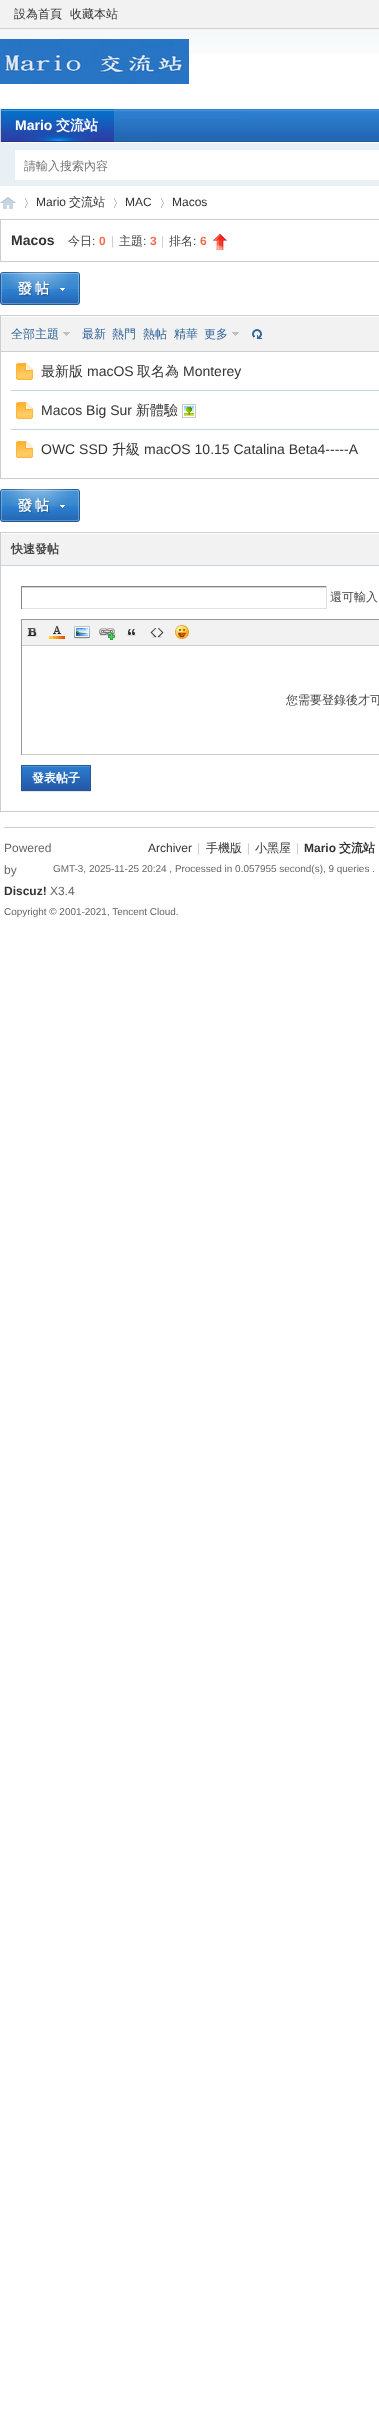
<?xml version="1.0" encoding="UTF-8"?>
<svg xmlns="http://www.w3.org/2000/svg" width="379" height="2435">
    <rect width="100%" height="100%" fill="#FFFFFF"/>
    <image x="0" y="29" width="379" height="25" href="img_01.png"/>
    <rect x="0" y="0" width="379" height="28" fill="#F2F2F2"/>
    <rect x="0" y="28" width="379" height="1" fill="#CDCDCD"/>
    <text x="14" y="18" font-family="WenQuanYi Zen Hei" font-size="12" font-weight="500" fill="#333333">設為首頁</text>
    <text x="70" y="18" font-family="WenQuanYi Zen Hei" font-size="12" font-weight="500" fill="#333333">收藏本站</text>
    <image x="0" y="39" width="189" height="45" href="img_02.png"/>
    <image x="114" y="109" width="265" height="33" href="img_03.png"/>
    <rect x="0" y="109" width="1" height="33" fill="#CDCDCD"/>
    <image x="1" y="109" width="113" height="33" href="img_04.png"/>
    <text x="15" y="130" font-family="Liberation Sans" font-size="14" font-weight="700" fill="#FFFFFF">Mario</text>
    <text x="56" y="130" font-family="WenQuanYi Zen Hei" font-size="14" font-weight="700" fill="#FFFFFF">交流站</text>
    <rect x="0" y="143" width="379" height="43" fill="#E8EFF5"/>
    <rect x="15" y="150" width="364" height="30" fill="#FFFFFF"/>
    <text x="24" y="170" font-family="WenQuanYi Zen Hei" font-size="12" font-weight="500" fill="#757575">請輸入搜索內容</text>
    <image x="0" y="197" width="16" height="12" href="img_05.png"/>
    <image x="25" y="198" width="3" height="10" href="img_06.png"/>
    <text x="36" y="206" font-family="Liberation Sans" font-size="12" fill="#333333">Mario</text>
    <text x="69" y="206" font-family="WenQuanYi Zen Hei" font-size="12" font-weight="500" fill="#333333">交流站</text>
    <image x="114" y="198" width="3" height="10" href="img_06.png"/>
    <text x="125" y="206" font-family="Liberation Sans" font-size="12" fill="#333333">MAC</text>
    <image x="161" y="198" width="3" height="10" href="img_06.png"/>
    <text x="172" y="206" font-family="Liberation Sans" font-size="12" fill="#333333">Macos</text>
    <rect x="0.5" y="219.5" width="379" height="42" fill="none" stroke="#CDCDCD"/>
    <text x="11" y="245" font-family="Liberation Sans" font-size="14" font-weight="700" fill="#333333">Macos</text>
    <text x="68" y="245" font-family="WenQuanYi Zen Hei" font-size="12" font-weight="500" fill="#444444">今日</text>
    <text x="92" y="245" font-family="Liberation Sans" font-size="12" fill="#444444">:</text>
    <text x="99" y="245" font-family="Liberation Sans" font-size="12" font-weight="700" fill="#F26C4F">0</text>
    <text x="111" y="245" font-family="Liberation Sans" font-size="12" fill="#CCCCCC">|</text>
    <text x="119" y="245" font-family="WenQuanYi Zen Hei" font-size="12" font-weight="500" fill="#444444">主題</text>
    <text x="143" y="245" font-family="Liberation Sans" font-size="12" fill="#444444">:</text>
    <text x="150" y="245" font-family="Liberation Sans" font-size="12" font-weight="700" fill="#F26C4F">3</text>
    <text x="161" y="245" font-family="Liberation Sans" font-size="12" fill="#CCCCCC">|</text>
    <text x="169" y="245" font-family="WenQuanYi Zen Hei" font-size="12" font-weight="500" fill="#444444">排名</text>
    <text x="193" y="245" font-family="Liberation Sans" font-size="12" fill="#444444">:</text>
    <text x="200" y="245" font-family="Liberation Sans" font-size="12" font-weight="700" fill="#F26C4F">6</text>
    <image x="213" y="234" width="14" height="16" href="img_07.png"/>
    <image x="0" y="272" width="80" height="33" href="img_08.png"/>
    <rect x="0.5" y="315.5" width="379" height="163" fill="none" stroke="#CDCDCD"/>
    <rect x="1" y="317" width="378" height="34" fill="#F2F2F2"/>
    <rect x="1" y="351" width="378" height="1" fill="#CDCDCD"/>
    <text x="11" y="338" font-family="WenQuanYi Zen Hei" font-size="12" font-weight="500" fill="#336699">全部主題</text>
    <image x="63" y="332" width="7" height="4" href="img_09.png"/>
    <text x="82" y="338" font-family="WenQuanYi Zen Hei" font-size="12" font-weight="500" fill="#336699">最新</text>
    <text x="112" y="338" font-family="WenQuanYi Zen Hei" font-size="12" font-weight="500" fill="#336699">熱門</text>
    <text x="143" y="338" font-family="WenQuanYi Zen Hei" font-size="12" font-weight="500" fill="#336699">熱帖</text>
    <text x="174" y="338" font-family="WenQuanYi Zen Hei" font-size="12" font-weight="500" fill="#336699">精華</text>
    <text x="204" y="338" font-family="WenQuanYi Zen Hei" font-size="12" font-weight="500" fill="#336699">更多</text>
    <image x="232" y="332" width="7" height="4" href="img_09.png"/>
    <image x="252" y="329" width="10" height="10" href="img_10.png"/>
    <rect x="11" y="390" width="368" height="1" fill="#C2D5E3"/>
    <image x="16" y="363" width="17" height="17" href="img_11.png"/>
    <text x="41" y="376" font-family="WenQuanYi Zen Hei" font-size="14" font-weight="500" fill="#333333">最新版</text>
    <text x="87" y="376" font-family="Liberation Sans" font-size="14" fill="#333333">macOS</text>
    <text x="137" y="376" font-family="WenQuanYi Zen Hei" font-size="14" font-weight="500" fill="#333333">取名為</text>
    <text x="183" y="376" font-family="Liberation Sans" font-size="14" fill="#333333">Monterey</text>
    <rect x="11" y="429" width="368" height="1" fill="#C2D5E3"/>
    <image x="16" y="402" width="17" height="17" href="img_11.png"/>
    <text x="41" y="415" font-family="Liberation Sans" font-size="14" fill="#333333">Macos Big Sur</text>
    <text x="136" y="415" font-family="WenQuanYi Zen Hei" font-size="14" font-weight="500" fill="#333333">新體驗</text>
    <image x="182" y="404" width="14" height="14" href="img_12.png"/>
    <image x="16" y="441" width="17" height="17" href="img_11.png"/>
    <text x="41" y="454" font-family="Liberation Sans" font-size="14" fill="#333333">OWC SSD</text>
    <text x="112" y="454" font-family="WenQuanYi Zen Hei" font-size="14" font-weight="500" fill="#333333">升級</text>
    <text x="144" y="454" font-family="Liberation Sans" font-size="14" fill="#333333">macOS 10.15 Catalina Beta4-----A</text>
    <image x="0" y="489" width="80" height="33" href="img_08.png"/>
    <rect x="0.5" y="532.5" width="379" height="279" fill="none" stroke="#CDCDCD"/>
    <rect x="1" y="534" width="378" height="31" fill="#F2F2F2"/>
    <rect x="1" y="565" width="378" height="1" fill="#C2D5E3"/>
    <text x="11" y="553" font-family="WenQuanYi Zen Hei" font-size="12" font-weight="700" fill="#444444">快速發帖</text>
    <rect x="21" y="587" width="306" height="1" fill="#D4D4D4"/>
    <rect x="21" y="586" width="306" height="1" fill="#848484"/>
    <rect x="326" y="586" width="1" height="23" fill="#E0E0E0"/>
    <rect x="21" y="608" width="306" height="1" fill="#E0E0E0"/>
    <rect x="21" y="586" width="1" height="23" fill="#848484"/>
    <text x="330" y="601" font-family="WenQuanYi Zen Hei" font-size="12" font-weight="500" fill="#444444">還可輸入</text>
    <rect x="21" y="619" width="358" height="1" fill="#999999"/>
    <rect x="21" y="754" width="358" height="1" fill="#CCCCCC"/>
    <rect x="21" y="619" width="1" height="136" fill="#999999"/>
    <rect x="22" y="620" width="357" height="25" fill="#F2F2F2"/>
    <rect x="22" y="645" width="357" height="1" fill="#CDCDCD"/>
    <image x="27" y="628" width="11" height="9" href="img_13.png"/>
    <image x="49" y="626" width="16" height="13" href="img_14.png"/>
    <image x="74" y="626" width="16" height="13" href="img_15.png"/>
    <image x="99" y="628" width="17" height="12" href="img_16.png"/>
    <image x="127" y="629" width="9" height="7" href="img_17.png"/>
    <image x="150" y="628" width="14" height="10" href="img_18.png"/>
    <image x="174" y="625" width="15" height="14" href="img_19.png"/>
    <text x="286" y="704" font-family="WenQuanYi Zen Hei" font-size="12" font-weight="500" fill="#444444">您需要登錄後才可</text>
    <rect x="21" y="791" width="70" height="1" fill="#E5E5E5"/>
    <image x="22" y="766" width="68" height="24" href="img_20.png"/>
    <rect x="21.5" y="765.5" width="69" height="25" fill="none" stroke="#235994"/>
    <text x="32" y="782" font-family="WenQuanYi Zen Hei" font-size="12" font-weight="700" fill="#FFFFFF">發表帖子</text>
    <rect x="4" y="827" width="371" height="1" fill="#CDCDCD"/>
    <text x="148" y="852" font-family="Liberation Sans" font-size="12" fill="#333333">Archiver</text>
    <text x="197" y="852" font-family="Liberation Sans" font-size="12" fill="#CCCCCC">|</text>
    <text x="206" y="852" font-family="WenQuanYi Zen Hei" font-size="12" font-weight="500" fill="#333333">手機版</text>
    <text x="247" y="852" font-family="Liberation Sans" font-size="12" fill="#CCCCCC">|</text>
    <text x="255" y="852" font-family="WenQuanYi Zen Hei" font-size="12" font-weight="500" fill="#333333">小黑屋</text>
    <text x="296" y="852" font-family="Liberation Sans" font-size="12" fill="#CCCCCC">|</text>
    <text x="304" y="852" font-family="Liberation Sans" font-size="12" font-weight="700" fill="#333333">Mario</text>
    <text x="339" y="852" font-family="WenQuanYi Zen Hei" font-size="12" font-weight="700" fill="#333333">交流站</text>
    <text x="53" y="872" font-family="Liberation Sans" font-size="9.95" fill="#666666">GMT-3, 2025-11-25 20:24 , Processed in 0.057955 second(s), 9 queries .</text>
    <text font-family="Liberation Sans" font-size="12" fill="#666666">
        <tspan x="4" y="852">Powered</tspan>
        <tspan x="4" y="874">by</tspan>
    </text>
    <text x="4" y="895" font-family="Liberation Sans" font-size="12" font-weight="700" fill="#333333">Discuz!</text>
    <text x="50" y="895" font-family="Liberation Sans" font-size="12" fill="#666666">X3.4</text>
    <text x="4" y="915" font-family="Liberation Sans" font-size="9.95" fill="#666666">Copyright © 2001-2021, Tencent Cloud.</text>
</svg>
